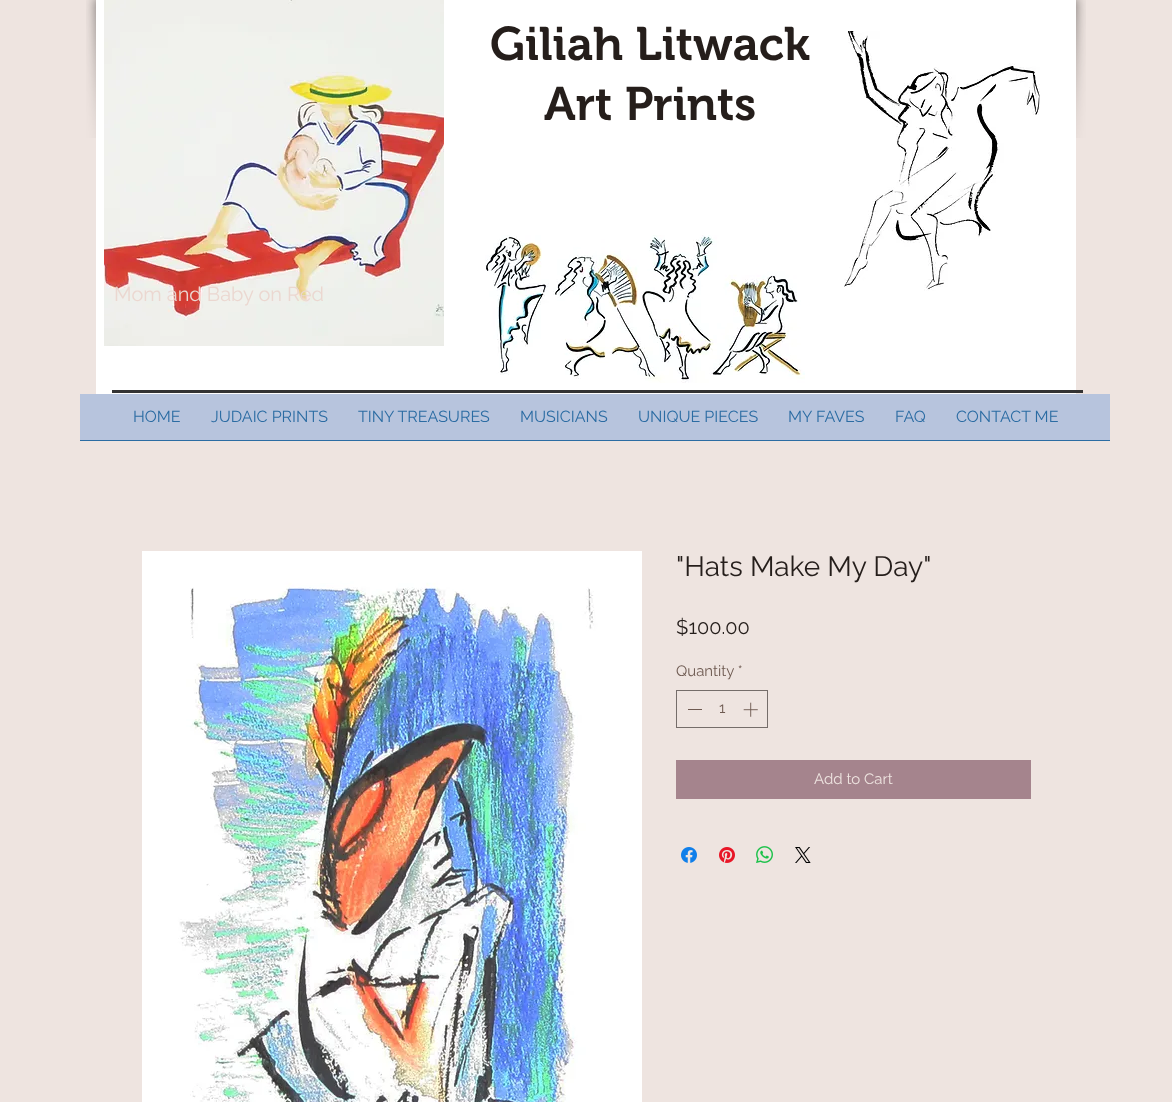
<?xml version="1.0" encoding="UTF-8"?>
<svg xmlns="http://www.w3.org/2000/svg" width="1172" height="1102">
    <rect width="100%" height="100%" fill="#EEE4E0"/>
    <image x="86" y="0" width="10" height="138" href="img_01.png"/>
    <rect x="96" y="0" width="980" height="394" fill="#FFFFFF"/>
    <image x="1076" y="0" width="10" height="138" href="img_02.png"/>
    <text x="490" y="60" font-family="'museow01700'" font-size="47" font-weight="600" fill="#251E1B">Giliah Litwack</text>
    <text x="544" y="120" font-family="'museow01700'" font-size="47" font-weight="600" fill="#251E1B">Art Prints</text>
    <image x="844" y="31" width="196" height="260" href="img_03.png"/>
    <image x="104" y="0" width="340" height="346" href="img_04.png"/>
    <text x="114" y="301" font-family="Raleway" font-size="20" fill="#EBD7D0">Mom and Baby on Red</text>
    <image x="485" y="235" width="320" height="148" href="img_05.png"/>
    <rect x="112" y="390" width="971" height="3" fill="#333333"/>
    <rect x="80" y="394" width="1030" height="46" fill="#B7C4DD"/>
    <rect x="80" y="440" width="1030" height="1" fill="#2B6CA3"/>
    <text x="133" y="422" font-family="Raleway" font-size="16" fill="#2B6CA3">HOME</text>
    <text x="211" y="422" font-family="Raleway" font-size="16" fill="#2B6CA3">JUDAIC PRINTS</text>
    <text x="358" y="422" font-family="Raleway" font-size="16" fill="#2B6CA3">TINY TREASURES</text>
    <text x="520" y="422" font-family="Raleway" font-size="16" fill="#2B6CA3">MUSICIANS</text>
    <text x="638" y="422" font-family="Raleway" font-size="16" fill="#2B6CA3">UNIQUE PIECES</text>
    <text x="788" y="422" font-family="Raleway" font-size="16" fill="#2B6CA3">MY FAVES</text>
    <text x="895" y="422" font-family="Raleway" font-size="16" fill="#2B6CA3">FAQ</text>
    <text x="956" y="422" font-family="Raleway" font-size="16" fill="#2B6CA3">CONTACT ME</text>
    <image x="142" y="551" width="500" height="551" href="img_06.png"/>
    <text x="676" y="576" font-family="Raleway" font-size="28" fill="#251E1B">"Hats Make My Day"</text>
    <text x="676" y="634" font-family="Raleway" font-size="20" fill="#251E1B">$100.00</text>
    <text x="676" y="676" font-family="Raleway" font-size="15" fill="#6E5A51">Quantity *</text>
    <rect x="676.5" y="690.5" width="91" height="37" fill="none" stroke="#756D6A"/>
    <rect x="688" y="709" width="14" height="1" fill="#6E5A51"/>
    <text x="719" y="713" font-family="Raleway" font-size="15" fill="#6E5A51">1</text>
    <image x="743" y="702" width="15" height="15" href="img_07.png"/>
    <rect x="676" y="760" width="355" height="39" fill="#A5848D"/>
    <text x="814" y="784" font-family="Raleway" font-size="15" fill="#EEE4E0">Add to Cart</text>
    <image x="681" y="847" width="16" height="16" href="img_08.png"/>
    <image x="719" y="847" width="16" height="16" href="img_09.png"/>
    <image x="756" y="846" width="17" height="17" href="img_10.png"/>
    <image x="795" y="847" width="16" height="16" href="img_11.png"/>
</svg>
